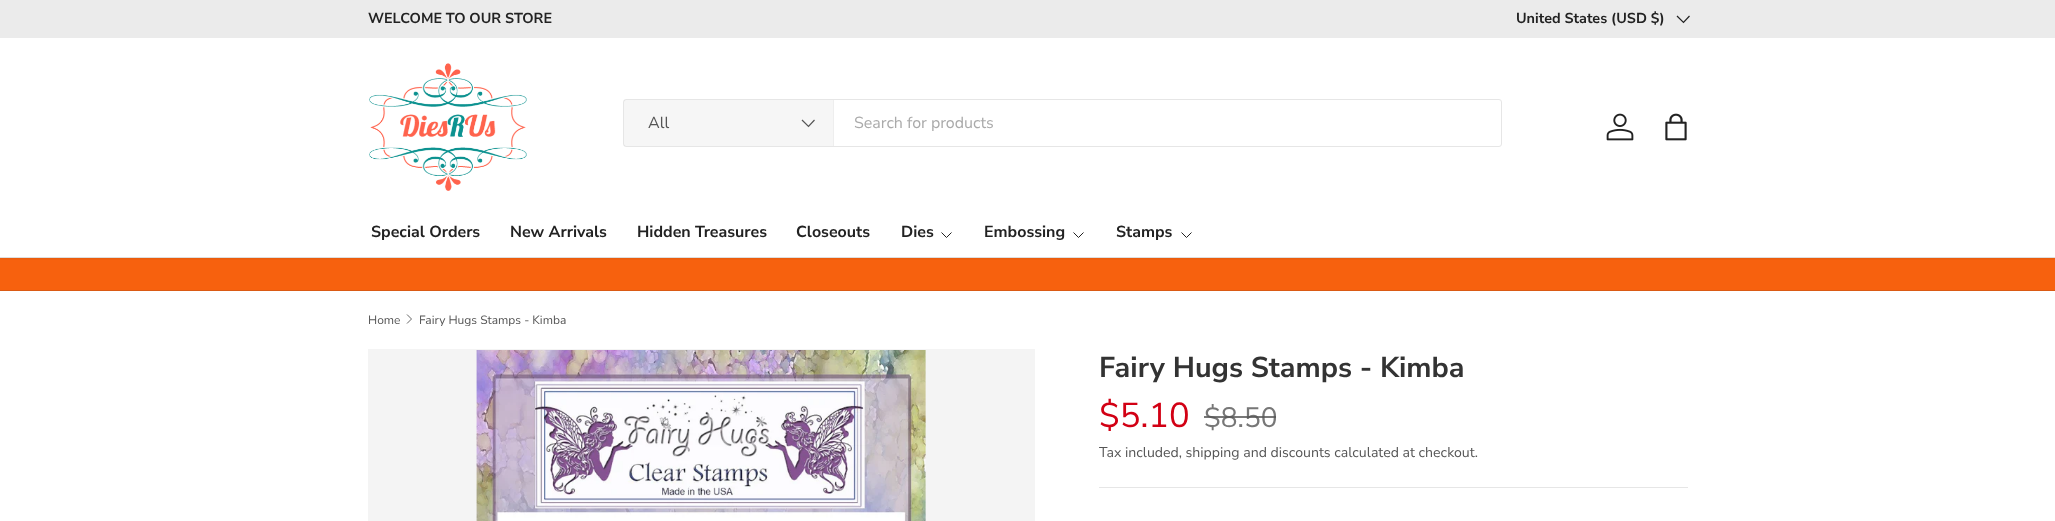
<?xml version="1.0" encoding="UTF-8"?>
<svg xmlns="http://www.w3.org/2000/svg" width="2055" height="521">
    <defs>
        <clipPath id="clip1"><rect x="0" y="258" width="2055" height="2"/></clipPath>
        <filter id="blur1" x="-50%" y="-200%" width="200%" height="500%"><feGaussianBlur stdDeviation="1.5"/></filter>
        <clipPath id="clip2"><rect x="419" y="314" width="147" height="12"/></clipPath>
    </defs>
    <rect width="100%" height="100%" fill="#FFFFFF"/>
    <rect x="0" y="258" width="2055" height="32" fill="#F7610E"/>
    <g clip-path="url(#clip1)">
        <rect x="-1" y="37" width="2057" height="222" fill="#000000" fill-opacity="0.08" filter="url(#blur1)"/>
    </g>
    <rect x="0" y="0" width="2055" height="38" fill="#EBEBEB"/>
    <text x="368" y="23" font-family="Nunito Sans" font-size="14.4" font-weight="700" fill="#222222">WELCOME TO OUR STORE</text>
    <text x="1516" y="23" font-family="Nunito Sans" font-size="14.4" font-weight="700" fill="#222222">United States (USD $)</text>
    <path d="M 1689.5 16 L 1683.5 22.5 L 1677 16" fill="none" stroke="#222222" stroke-width="1.2"/>
    <image x="369" y="63" width="158" height="128" href="img_01.png"/>
    <rect x="623.5" y="99.5" width="878" height="47" rx="2.5" fill="none" stroke="#E6E6E6"/>
    <rect x="624" y="100" width="209" height="46" fill="#555555" fill-opacity="0.05"/>
    <rect x="833" y="100" width="1" height="46" fill="#EEEEEE"/>
    <text x="648" y="128" font-family="Nunito Sans" font-size="16" fill="#555555">All</text>
    <path d="M 814.5 120 L 808.5 126.5 L 802 120" fill="none" stroke="#555555" stroke-width="1.2"/>
    <text x="854" y="128" font-family="Nunito Sans" font-size="16" fill="#AAAAAA">Search for products</text>
    <image x="1606" y="113" width="28" height="28" href="img_02.png"/>
    <image x="1665" y="113" width="22" height="28" href="img_03.png"/>
    <text x="371" y="237" font-family="Nunito Sans" font-size="16" font-weight="700" fill="#222222">Special Orders</text>
    <text x="510" y="237" font-family="Nunito Sans" font-size="16" font-weight="700" fill="#222222">New Arrivals</text>
    <text x="637" y="237" font-family="Nunito Sans" font-size="16" font-weight="700" fill="#222222">Hidden Treasures</text>
    <text x="796" y="237" font-family="Nunito Sans" font-size="16" font-weight="700" fill="#222222">Closeouts</text>
    <text x="901" y="237" font-family="Nunito Sans" font-size="16" font-weight="700" fill="#222222">Dies</text>
    <path d="M 951.5 232.5 L 946.5 237.5 L 941.5 232.5" fill="none" stroke="#222222"/>
    <text x="984" y="237" font-family="Nunito Sans" font-size="16" font-weight="700" fill="#222222">Embossing</text>
    <path d="M 1083.5 232.5 L 1078.5 237.5 L 1073.5 232.5" fill="none" stroke="#222222"/>
    <text x="1116" y="237" font-family="Nunito Sans" font-size="16" font-weight="700" fill="#222222">Stamps</text>
    <path d="M 1191.5 232.5 L 1186.5 237.5 L 1181.5 232.5" fill="none" stroke="#222222"/>
    <rect x="0" y="257" width="2055" height="1" fill="#DEDEDE"/>
    <rect x="0" y="290" width="2055" height="1" fill="#DA5A14"/>
    <text x="368" y="324" font-family="Nunito Sans" font-size="12" fill="#555555">Home</text>
    <path d="M 407 314.5 L 411.5 319 L 407 323.5" fill="none" stroke="#555555" stroke-width="0.9"/>
    <g clip-path="url(#clip2)">
        <text x="419" y="324" font-family="Nunito Sans" font-size="12" fill="#555555">Fairy Hugs Stamps - Kimba</text>
    </g>
    <rect x="368" y="349" width="667" height="172" fill="#F4F4F4"/>
    <image x="476" y="350" width="450" height="171" href="img_04.png"/>
    <text x="1099" y="377" font-family="Nunito Sans" font-size="28.75" font-weight="700" fill="#333333">Fairy Hugs Stamps - Kimba</text>
    <text x="1099" y="427" font-family="Nunito Sans" font-size="34.5" fill="#D20014">$5.10</text>
    <text x="1204" y="427" font-family="Nunito Sans" font-size="28" fill="#777777">$8.50</text>
    <rect x="1204" y="416" width="72" height="2" fill="#555555" fill-opacity="0.8"/>
    <text x="1099" y="457" font-family="Nunito Sans" font-size="14.1" fill="#555555">Tax included, shipping and discounts calculated at checkout.</text>
    <rect x="1099" y="487" width="589" height="1" fill="#E6E6E6"/>
</svg>
